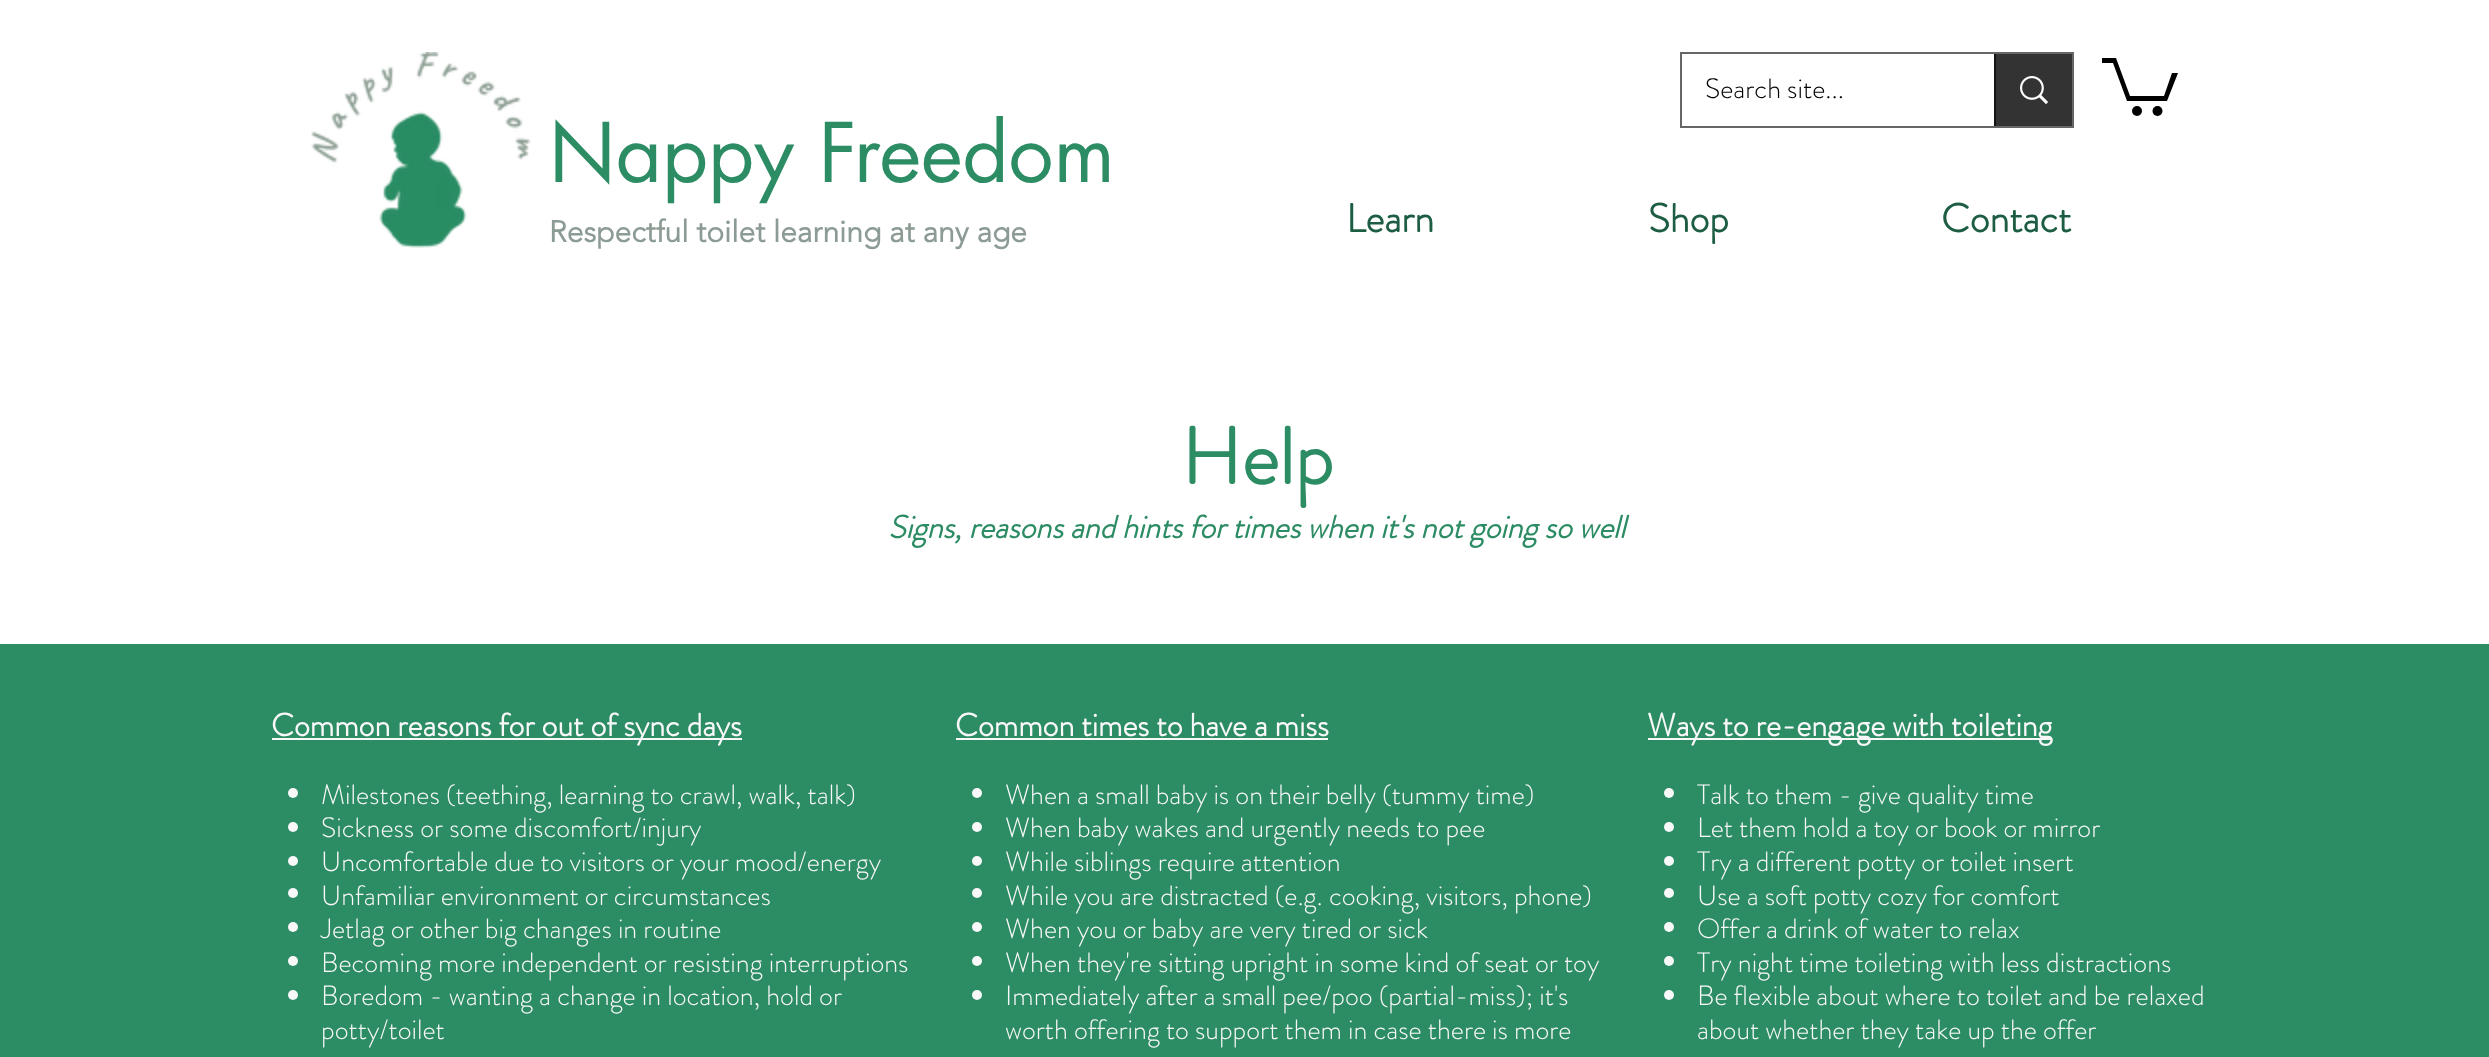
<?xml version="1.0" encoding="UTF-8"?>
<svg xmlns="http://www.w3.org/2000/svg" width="2489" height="1057">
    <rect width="100%" height="100%" fill="#FFFFFF"/>
    <image x="311" y="52" width="220" height="196" href="img_01.png"/>
    <rect x="1681" y="53" width="392" height="74" fill="none" stroke="#666666" stroke-width="2"/>
    <text x="1705" y="98" font-family="'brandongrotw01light'" font-size="28" font-weight="300" fill="#000000">Search site...</text>
    <rect x="1996" y="54" width="76" height="72" fill="#333333"/>
    <rect x="1994" y="54" width="2" height="72" fill="#141414"/>
    <image x="2020" y="76" width="28" height="28" href="img_02.png"/>
    <path d="M 2178 73 L 2167 101 H 2127 L 2113 63 H 2102 V 58 H 2116 L 2130 96 H 2164 L 2172 73" fill="#000000"/>
    <circle cx="2157.5" cy="111" r="5" fill="#000000"/>
    <circle cx="2137" cy="111" r="5" fill="#000000"/>
    <text x="549" y="182" font-family="futura" font-size="80" fill="#2C8C64">Nappy Freedom</text>
    <text x="549" y="242" font-family="'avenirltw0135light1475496'" font-size="30" font-weight="700" fill="#8C9C94">Respectful toilet learning at any age</text>
    <text x="1346" y="232" font-family="'brandongrotw01light'" font-size="40" font-weight="700" fill="#1D5D43">Learn</text>
    <text x="1648" y="232" font-family="'brandongrotw01light'" font-size="40" font-weight="700" fill="#1D5D43">Shop</text>
    <text x="1941" y="232" font-family="'brandongrotw01light'" font-size="40" font-weight="700" fill="#1D5D43">Contact</text>
    <text x="1181" y="484" font-family="'brandongrotw01light'" font-size="80" font-weight="700" fill="#2C8C64">Help</text>
    <text x="888" y="538" font-family="'brandongrotw01light'" font-size="32" font-weight="700" font-style="italic" fill="#2C8C64">Signs, reasons and hints for times when it's not going so well</text>
    <rect x="0" y="644" width="2489" height="413" fill="#2C8C64"/>
    <rect x="272" y="738" width="470" height="2" fill="#F8F8F8"/>
    <text x="271" y="736" font-family="'brandongrotw01light'" font-size="32" font-weight="700" fill="#F8F8F8">Common reasons for out of sync days</text>
    <circle cx="293" cy="793" r="5" fill="#F8F8F8"/>
    <text x="321" y="804" font-family="'brandongrotw01light'" font-size="28" font-weight="300" fill="#F8F8F8">Milestones (teething, learning to crawl, walk, talk)</text>
    <circle cx="293" cy="827" r="5" fill="#F8F8F8"/>
    <text x="321" y="837" font-family="'brandongrotw01light'" font-size="28" font-weight="300" fill="#F8F8F8">Sickness or some discomfort/injury</text>
    <circle cx="293" cy="861" r="5" fill="#F8F8F8"/>
    <text x="321" y="871" font-family="'brandongrotw01light'" font-size="28" font-weight="300" fill="#F8F8F8">Uncomfortable due to visitors or your mood/energy</text>
    <circle cx="293" cy="893" r="5" fill="#F8F8F8"/>
    <text x="321" y="905" font-family="'brandongrotw01light'" font-size="28" font-weight="300" fill="#F8F8F8">Unfamiliar environment or circumstances</text>
    <circle cx="293" cy="927" r="5" fill="#F8F8F8"/>
    <text x="321" y="938" font-family="'brandongrotw01light'" font-size="28" font-weight="300" fill="#F8F8F8">Jetlag or other big changes in routine</text>
    <circle cx="293" cy="961" r="5" fill="#F8F8F8"/>
    <text x="321" y="972" font-family="'brandongrotw01light'" font-size="28" font-weight="300" fill="#F8F8F8">Becoming more independent or resisting interruptions</text>
    <circle cx="293" cy="995" r="5" fill="#F8F8F8"/>
    <text font-family="'brandongrotw01light'" font-size="28" font-weight="300" fill="#F8F8F8">
        <tspan x="321" y="1005">Boredom - wanting a change in location, hold or</tspan>
        <tspan x="321" y="1039">potty/toilet</tspan>
    </text>
    <text x="955" y="736" font-family="'brandongrotw01light'" font-size="32" font-weight="700" fill="#F8F8F8">Common times to have a miss</text>
    <rect x="956" y="738" width="372" height="2" fill="#F8F8F8"/>
    <circle cx="977" cy="793" r="5" fill="#F8F8F8"/>
    <text x="1005" y="804" font-family="'brandongrotw01light'" font-size="28" font-weight="300" fill="#F8F8F8">When a small baby is on their belly (tummy time)</text>
    <circle cx="977" cy="827" r="5" fill="#F8F8F8"/>
    <text x="1005" y="837" font-family="'brandongrotw01light'" font-size="28" font-weight="300" fill="#F8F8F8">When baby wakes and urgently needs to pee</text>
    <circle cx="977" cy="861" r="5" fill="#F8F8F8"/>
    <text x="1005" y="871" font-family="'brandongrotw01light'" font-size="28" font-weight="300" fill="#F8F8F8">While siblings require attention</text>
    <circle cx="977" cy="893" r="5" fill="#F8F8F8"/>
    <text x="1005" y="905" font-family="'brandongrotw01light'" font-size="28" font-weight="300" fill="#F8F8F8">While you are distracted (e.g. cooking, visitors, phone)</text>
    <circle cx="977" cy="927" r="5" fill="#F8F8F8"/>
    <text x="1005" y="938" font-family="'brandongrotw01light'" font-size="28" font-weight="300" fill="#F8F8F8">When you or baby are very tired or sick</text>
    <circle cx="977" cy="961" r="5" fill="#F8F8F8"/>
    <text x="1005" y="972" font-family="'brandongrotw01light'" font-size="28" font-weight="300" fill="#F8F8F8">When they're sitting upright in some kind of seat or toy</text>
    <circle cx="977" cy="995" r="5" fill="#F8F8F8"/>
    <text font-family="'brandongrotw01light'" font-size="28" font-weight="300" fill="#F8F8F8">
        <tspan x="1005" y="1005">Immediately after a small pee/poo (partial-miss); it's</tspan>
        <tspan x="1005" y="1039">worth offering to support them in case there is more</tspan>
    </text>
    <rect x="1648" y="738" width="404" height="2" fill="#F8F8F8"/>
    <text x="1647" y="736" font-family="'brandongrotw01light'" font-size="32" font-weight="700" fill="#F8F8F8">Ways to re-engage with toileting</text>
    <circle cx="1669" cy="793" r="5" fill="#F8F8F8"/>
    <text x="1697" y="804" font-family="'brandongrotw01light'" font-size="28" font-weight="300" fill="#F8F8F8">Talk to them - give quality time</text>
    <circle cx="1669" cy="827" r="5" fill="#F8F8F8"/>
    <text x="1697" y="837" font-family="'brandongrotw01light'" font-size="28" font-weight="300" fill="#F8F8F8">Let them hold a toy or book or mirror</text>
    <circle cx="1669" cy="861" r="5" fill="#F8F8F8"/>
    <text x="1697" y="871" font-family="'brandongrotw01light'" font-size="28" font-weight="300" fill="#F8F8F8">Try a different potty or toilet insert</text>
    <circle cx="1669" cy="893" r="5" fill="#F8F8F8"/>
    <text x="1697" y="905" font-family="'brandongrotw01light'" font-size="28" font-weight="300" fill="#F8F8F8">Use a soft potty cozy for comfort</text>
    <circle cx="1669" cy="927" r="5" fill="#F8F8F8"/>
    <text x="1697" y="938" font-family="'brandongrotw01light'" font-size="28" font-weight="300" fill="#F8F8F8">Offer a drink of water to relax</text>
    <circle cx="1669" cy="961" r="5" fill="#F8F8F8"/>
    <text x="1697" y="972" font-family="'brandongrotw01light'" font-size="28" font-weight="300" fill="#F8F8F8">Try night time toileting with less distractions</text>
    <circle cx="1669" cy="995" r="5" fill="#F8F8F8"/>
    <text font-family="'brandongrotw01light'" font-size="28" font-weight="300" fill="#F8F8F8">
        <tspan x="1697" y="1005">Be flexible about where to toilet and be relaxed</tspan>
        <tspan x="1697" y="1039">about whether they take up the offer</tspan>
    </text>
</svg>
